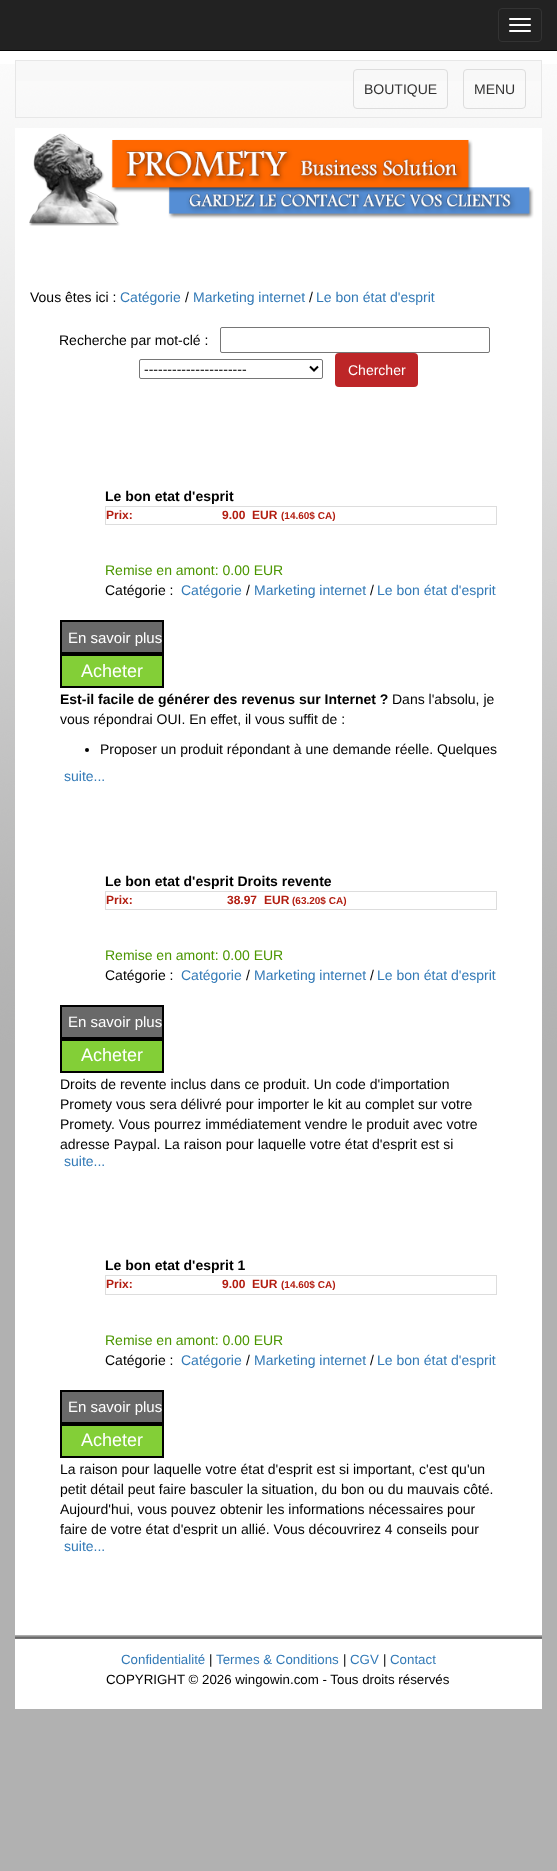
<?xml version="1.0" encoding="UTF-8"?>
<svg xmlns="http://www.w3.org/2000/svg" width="557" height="1871">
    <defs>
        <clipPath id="clip1"><rect x="60" y="1074" width="437" height="77"/></clipPath>
        <clipPath id="clip2"><rect x="60" y="1459" width="437" height="77"/></clipPath>
    </defs>
    <rect width="100%" height="100%" fill="#FFFFFF"/>
    <image x="0" y="64" width="557" height="1807" href="img_01.png"/>
    <rect x="0" y="0" width="557" height="50" fill="#222222"/>
    <rect x="0" y="50" width="557" height="1" fill="#080808"/>
    <rect x="498.5" y="8.5" width="43" height="33" rx="3.5" fill="none" stroke="#333333"/>
    <rect x="509" y="18" width="22" height="2" rx="1" fill="#FFFFFF"/>
    <rect x="509" y="24" width="22" height="2" rx="1" fill="#FFFFFF"/>
    <rect x="509" y="30" width="22" height="2" rx="1" fill="#FFFFFF"/>
    <rect x="16" y="61" width="525" height="20" fill="#F8F8F8"/>
    <rect x="15.5" y="60.5" width="526" height="57" fill="none" stroke="#E7E7E7"/>
    <rect x="353.5" y="69.5" width="94" height="39" rx="3.5" fill="none" stroke="#DDDDDD"/>
    <text x="364" y="94" font-family="Liberation Sans" font-size="14" fill="#333333">BOUTIQUE</text>
    <rect x="463.5" y="69.5" width="62" height="39" rx="3.5" fill="none" stroke="#DDDDDD"/>
    <text x="474" y="94" font-family="Liberation Sans" font-size="14" fill="#333333">MENU</text>
    <rect x="15" y="128" width="527" height="1581" fill="#FFFFFF"/>
    <image x="29" y="133" width="505" height="93" href="img_02.png"/>
    <text x="30" y="302" font-family="Liberation Sans" font-size="14" fill="#000000">Vous êtes ici :</text>
    <text x="120" y="302" font-family="Liberation Sans" font-size="14" fill="#337AB7">Catégorie</text>
    <text x="185" y="302" font-family="Liberation Sans" font-size="14" fill="#000000">/</text>
    <text x="193" y="302" font-family="Liberation Sans" font-size="14" fill="#337AB7">Marketing internet</text>
    <text x="309" y="302" font-family="Liberation Sans" font-size="14" fill="#000000">/</text>
    <text x="316" y="302" font-family="Liberation Sans" font-size="14" fill="#337AB7">Le bon état d'esprit</text>
    <text x="59" y="345" font-family="Liberation Sans" font-size="14" fill="#000000">Recherche par mot-clé :</text>
    <rect x="220.5" y="327.5" width="269" height="25" rx="1.5" fill="none" stroke="#767676"/>
    <rect x="139.5" y="359.5" width="183" height="19" rx="1.5" fill="none" stroke="#767676"/>
    <path d="M 310 366.5 L 314 370.5 L 318 366.5" fill="none" stroke="#000000" stroke-width="2"/>
    <text x="144" y="374" font-family="Liberation Sans" font-size="14" fill="#000000">----------------------</text>
    <rect x="335" y="353" width="83" height="34" rx="4" fill="#BD2628"/>
    <text x="348" y="375" font-family="Liberation Sans" font-size="14" fill="#FFFFFF">Chercher</text>
    <text x="105" y="501" font-family="Liberation Sans" font-size="14" font-weight="700" fill="#000000">Le bon etat d'esprit</text>
    <rect x="105" y="506" width="392" height="1" fill="#DDDDDD"/>
    <rect x="496" y="506" width="1" height="19" fill="#DDDDDD"/>
    <rect x="105" y="524" width="392" height="1" fill="#DDDDDD"/>
    <rect x="105" y="506" width="1" height="19" fill="#DDDDDD"/>
    <text x="106" y="519" font-family="Liberation Sans" font-size="12" font-weight="700" fill="#B21D10">Prix:</text>
    <text x="222" y="519" font-family="Liberation Sans" font-size="12" font-weight="700" fill="#B21D10">9.00</text>
    <text x="252" y="519" font-family="Liberation Sans" font-size="12" font-weight="700" fill="#B21D10">EUR</text>
    <text x="281" y="519" font-family="Liberation Sans" font-size="10" font-weight="700" fill="#B21D10">(14.60$ CA)</text>
    <text x="105" y="575" font-family="Liberation Sans" font-size="14" fill="#4B9600">Remise en amont: 0.00 EUR</text>
    <text x="105" y="595" font-family="Liberation Sans" font-size="14" fill="#000000">Catégorie :</text>
    <text x="181" y="595" font-family="Liberation Sans" font-size="14" fill="#337AB7">Catégorie</text>
    <text x="246" y="595" font-family="Liberation Sans" font-size="14" fill="#000000">/</text>
    <text x="254" y="595" font-family="Liberation Sans" font-size="14" fill="#337AB7">Marketing internet</text>
    <text x="370" y="595" font-family="Liberation Sans" font-size="14" fill="#000000">/</text>
    <text x="377" y="595" font-family="Liberation Sans" font-size="14" fill="#337AB7">Le bon état d'esprit</text>
    <rect x="61" y="621" width="102" height="32" fill="#696969" stroke="#000000" stroke-width="2"/>
    <text x="68" y="643" font-family="Liberation Sans" font-size="15" fill="#FFFFFF">En savoir plus</text>
    <rect x="61" y="655" width="102" height="32" fill="#83CF37" stroke="#000000" stroke-width="2"/>
    <text x="81" y="677" font-family="Liberation Sans" font-size="18" fill="#FFFFFF">Acheter</text>
    <text x="60" y="704" font-family="Liberation Sans" font-size="14" font-weight="700" fill="#000000">Est-il facile de générer des revenus sur Internet ?</text>
    <text x="392" y="704" font-family="Liberation Sans" font-size="14" fill="#000000">Dans l'absolu, je</text>
    <text x="60" y="724" font-family="Liberation Sans" font-size="14" fill="#000000">vous répondrai OUI. En effet, il vous suffit de :</text>
    <circle cx="87" cy="750" r="2" fill="#000000"/>
    <text x="100" y="754" font-family="Liberation Sans" font-size="14" fill="#000000">Proposer un produit répondant à une demande réelle. Quelques</text>
    <text x="64" y="781" font-family="Liberation Sans" font-size="14" fill="#337AB7">suite...</text>
    <text x="105" y="886" font-family="Liberation Sans" font-size="14" font-weight="700" fill="#000000">Le bon etat d'esprit Droits revente</text>
    <rect x="105" y="891" width="392" height="1" fill="#DDDDDD"/>
    <rect x="496" y="891" width="1" height="19" fill="#DDDDDD"/>
    <rect x="105" y="909" width="392" height="1" fill="#DDDDDD"/>
    <rect x="105" y="891" width="1" height="19" fill="#DDDDDD"/>
    <text x="106" y="904" font-family="Liberation Sans" font-size="12" font-weight="700" fill="#B21D10">Prix:</text>
    <text x="227" y="904" font-family="Liberation Sans" font-size="12" font-weight="700" fill="#B21D10">38.97</text>
    <text x="264" y="904" font-family="Liberation Sans" font-size="12" font-weight="700" fill="#B21D10">EUR</text>
    <text x="292" y="904" font-family="Liberation Sans" font-size="10" font-weight="700" fill="#B21D10">(63.20$ CA)</text>
    <text x="105" y="960" font-family="Liberation Sans" font-size="14" fill="#4B9600">Remise en amont: 0.00 EUR</text>
    <text x="105" y="980" font-family="Liberation Sans" font-size="14" fill="#000000">Catégorie :</text>
    <text x="181" y="980" font-family="Liberation Sans" font-size="14" fill="#337AB7">Catégorie</text>
    <text x="246" y="980" font-family="Liberation Sans" font-size="14" fill="#000000">/</text>
    <text x="254" y="980" font-family="Liberation Sans" font-size="14" fill="#337AB7">Marketing internet</text>
    <text x="370" y="980" font-family="Liberation Sans" font-size="14" fill="#000000">/</text>
    <text x="377" y="980" font-family="Liberation Sans" font-size="14" fill="#337AB7">Le bon état d'esprit</text>
    <rect x="61" y="1006" width="102" height="32" fill="#696969" stroke="#000000" stroke-width="2"/>
    <text x="68" y="1027" font-family="Liberation Sans" font-size="15" fill="#FFFFFF">En savoir plus</text>
    <rect x="61" y="1040" width="102" height="32" fill="#83CF37" stroke="#000000" stroke-width="2"/>
    <text x="81" y="1061" font-family="Liberation Sans" font-size="18" fill="#FFFFFF">Acheter</text>
    <text font-family="Liberation Sans" font-size="14" fill="#000000">
        <tspan x="60" y="1089">Droits de revente inclus dans ce produit. Un code d'importation</tspan>
        <tspan x="60" y="1109">Promety vous sera délivré pour importer le kit au complet sur votre</tspan>
        <tspan x="60" y="1129">Promety. Vous pourrez immédiatement vendre le produit avec votre</tspan>
    </text>
    <g clip-path="url(#clip1)">
        <text x="60" y="1149" font-family="Liberation Sans" font-size="14" fill="#000000">adresse Paypal. La raison pour laquelle votre état d'esprit est si</text>
    </g>
    <text x="64" y="1166" font-family="Liberation Sans" font-size="14" fill="#337AB7">suite...</text>
    <text x="105" y="1270" font-family="Liberation Sans" font-size="14" font-weight="700" fill="#000000">Le bon etat d'esprit 1</text>
    <rect x="105" y="1275" width="392" height="1" fill="#DDDDDD"/>
    <rect x="496" y="1275" width="1" height="20" fill="#DDDDDD"/>
    <rect x="105" y="1294" width="392" height="1" fill="#DDDDDD"/>
    <rect x="105" y="1275" width="1" height="20" fill="#DDDDDD"/>
    <text x="106" y="1288" font-family="Liberation Sans" font-size="12" font-weight="700" fill="#B21D10">Prix:</text>
    <text x="222" y="1288" font-family="Liberation Sans" font-size="12" font-weight="700" fill="#B21D10">9.00</text>
    <text x="252" y="1288" font-family="Liberation Sans" font-size="12" font-weight="700" fill="#B21D10">EUR</text>
    <text x="281" y="1288" font-family="Liberation Sans" font-size="10" font-weight="700" fill="#B21D10">(14.60$ CA)</text>
    <text x="105" y="1345" font-family="Liberation Sans" font-size="14" fill="#4B9600">Remise en amont: 0.00 EUR</text>
    <text x="105" y="1365" font-family="Liberation Sans" font-size="14" fill="#000000">Catégorie :</text>
    <text x="181" y="1365" font-family="Liberation Sans" font-size="14" fill="#337AB7">Catégorie</text>
    <text x="246" y="1365" font-family="Liberation Sans" font-size="14" fill="#000000">/</text>
    <text x="254" y="1365" font-family="Liberation Sans" font-size="14" fill="#337AB7">Marketing internet</text>
    <text x="370" y="1365" font-family="Liberation Sans" font-size="14" fill="#000000">/</text>
    <text x="377" y="1365" font-family="Liberation Sans" font-size="14" fill="#337AB7">Le bon état d'esprit</text>
    <rect x="61" y="1391" width="102" height="32" fill="#696969" stroke="#000000" stroke-width="2"/>
    <text x="68" y="1412" font-family="Liberation Sans" font-size="15" fill="#FFFFFF">En savoir plus</text>
    <rect x="61" y="1425" width="102" height="32" fill="#83CF37" stroke="#000000" stroke-width="2"/>
    <text x="81" y="1446" font-family="Liberation Sans" font-size="18" fill="#FFFFFF">Acheter</text>
    <text font-family="Liberation Sans" font-size="14" fill="#000000">
        <tspan x="60" y="1474">La raison pour laquelle votre état d'esprit est si important, c'est qu'un</tspan>
        <tspan x="60" y="1494">petit détail peut faire basculer la situation, du bon ou du mauvais côté.</tspan>
        <tspan x="60" y="1514">Aujourd'hui, vous pouvez obtenir les informations nécessaires pour</tspan>
    </text>
    <g clip-path="url(#clip2)">
        <text x="60" y="1534" font-family="Liberation Sans" font-size="14" fill="#000000">faire de votre état d'esprit un allié. Vous découvrirez 4 conseils pour</text>
    </g>
    <text x="64" y="1551" font-family="Liberation Sans" font-size="14" fill="#337AB7">suite...</text>
    <image x="15" y="1635" width="527" height="4" href="img_03.png"/>
    <text x="121" y="1664" font-family="Liberation Sans" font-size="13.3" fill="#337AB7">Confidentialité</text>
    <text x="209" y="1664" font-family="Liberation Sans" font-size="13.3" fill="#000000">|</text>
    <text x="216" y="1664" font-family="Liberation Sans" font-size="13.3" fill="#337AB7">Termes &amp; Conditions</text>
    <text x="343" y="1664" font-family="Liberation Sans" font-size="13.3" fill="#000000">|</text>
    <text x="350" y="1664" font-family="Liberation Sans" font-size="13.3" fill="#337AB7">CGV</text>
    <text x="383" y="1664" font-family="Liberation Sans" font-size="13.3" fill="#000000">|</text>
    <text x="390" y="1664" font-family="Liberation Sans" font-size="13.3" fill="#337AB7">Contact</text>
    <text x="106" y="1684" font-family="Liberation Sans" font-size="13.3" fill="#000000">COPYRIGHT © 2026 wingowin.com - Tous droits réservés</text>
</svg>
